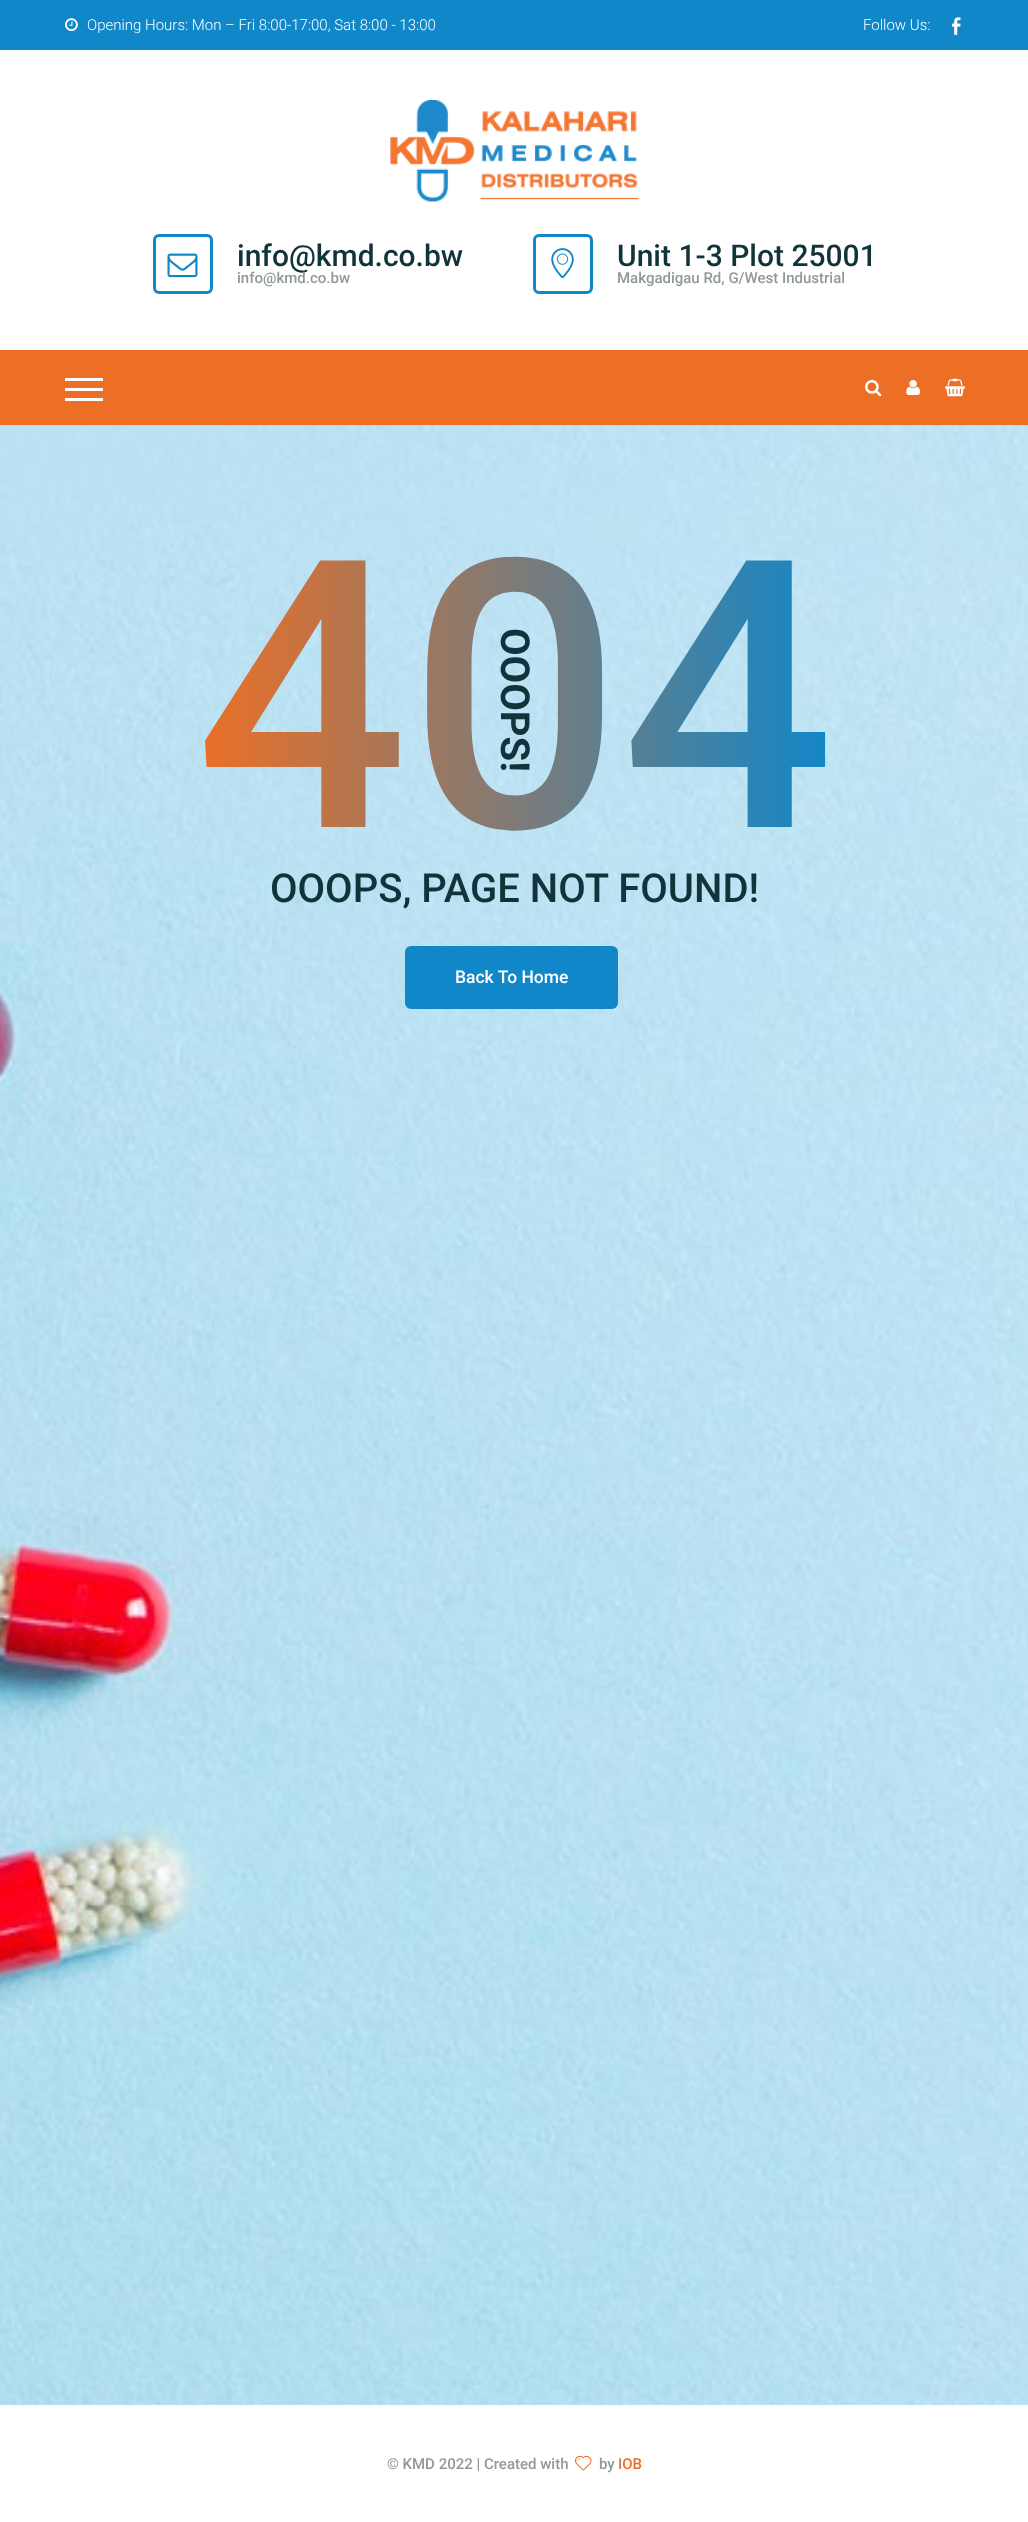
<?xml version="1.0" encoding="UTF-8"?>
<svg xmlns="http://www.w3.org/2000/svg" width="1028" height="2522">
    <defs>
        <linearGradient id="g1" gradientUnits="userSpaceOnUse" x1="195" y1="700" x2="834" y2="700"><stop offset="0" stop-color="#ED6F25"/><stop offset="1" stop-color="#1087C9"/></linearGradient>
    </defs>
    <rect width="100%" height="100%" fill="#FFFFFF"/>
    <rect x="0" y="0" width="1028" height="50" fill="#1087C9"/>
    <image x="65" y="18" width="13" height="14" href="img_01.png"/>
    <text x="87" y="30" font-family="Roboto" font-size="15" font-weight="300" fill="#FFFFFF">Opening Hours: Mon – Fri 8:00-17:00, Sat 8:00 - 13:00</text>
    <text x="863" y="30" font-family="Roboto" font-size="15" font-weight="300" fill="#FFFFFF">Follow Us:</text>
    <image x="952" y="17" width="9" height="18" href="img_02.png"/>
    <image x="390" y="100" width="249" height="103" href="img_03.png"/>
    <rect x="154.5" y="235.5" width="57" height="57" rx="4.5" fill="none" stroke="#1087C9" stroke-width="3"/>
    <image x="167" y="253" width="31" height="25" href="img_04.png"/>
    <text x="237" y="266" font-family="Roboto" font-size="30" font-weight="500" fill="#11333A">info@kmd.co.bw</text>
    <text x="237" y="283" font-family="Roboto" font-size="15" font-weight="500" fill="#919899">info@kmd.co.bw</text>
    <rect x="534.5" y="235.5" width="57" height="57" rx="4.5" fill="none" stroke="#1087C9" stroke-width="3"/>
    <image x="551" y="248" width="23" height="31" href="img_05.png"/>
    <text x="617" y="266" font-family="Roboto" font-size="30" font-weight="500" fill="#11333A">Unit 1-3 Plot 25001</text>
    <text x="617" y="283" font-family="Roboto" font-size="15" font-weight="500" fill="#919899">Makgadigau Rd, G/West Industrial</text>
    <rect x="0" y="350" width="1028" height="75" fill="#ED6F25"/>
    <rect x="65" y="378" width="38" height="3" fill="#FFFFFF"/>
    <rect x="65" y="398" width="38" height="3" fill="#FFFFFF"/>
    <rect x="65" y="388" width="38" height="3" fill="#FFFFFF"/>
    <image x="865" y="380" width="17" height="17" href="img_06.png"/>
    <image x="906" y="380" width="14" height="15" href="img_07.png"/>
    <image x="945" y="378" width="20" height="19" href="img_08.png"/>
    <image x="0" y="425" width="1028" height="1980" href="img_09.png"/>
    <text x="195" y="827" font-family="Roboto" font-size="375" font-weight="500" fill="url(#g1)">404</text>
    <text x="501" y="628" transform="rotate(90 501 628)" font-family="Roboto" font-size="40" font-weight="700" fill="#11333A">OOOPS!</text>
    <text x="270" y="902" font-family="Roboto" font-size="40" font-weight="500" fill="#11333A">OOOPS, PAGE NOT FOUND!</text>
    <rect x="406.5" y="947.5" width="210" height="60" rx="4.5" fill="#1087C9" stroke="#1087C9" stroke-width="3"/>
    <text x="455" y="983" font-family="Roboto" font-size="17.5" font-weight="500" fill="#FFFFFF">Back To Home</text>
    <text x="387" y="2469" font-family="Roboto" font-size="15" font-weight="500" fill="#919899">© KMD 2022 | Created with</text>
    <image x="575" y="2455" width="17" height="16" href="img_10.png"/>
    <text x="599" y="2469" font-family="Roboto" font-size="15" font-weight="500" fill="#919899">by</text>
    <text x="618" y="2469" font-family="Roboto" font-size="15" font-weight="500" fill="#ED6F25">IOB</text>
</svg>
